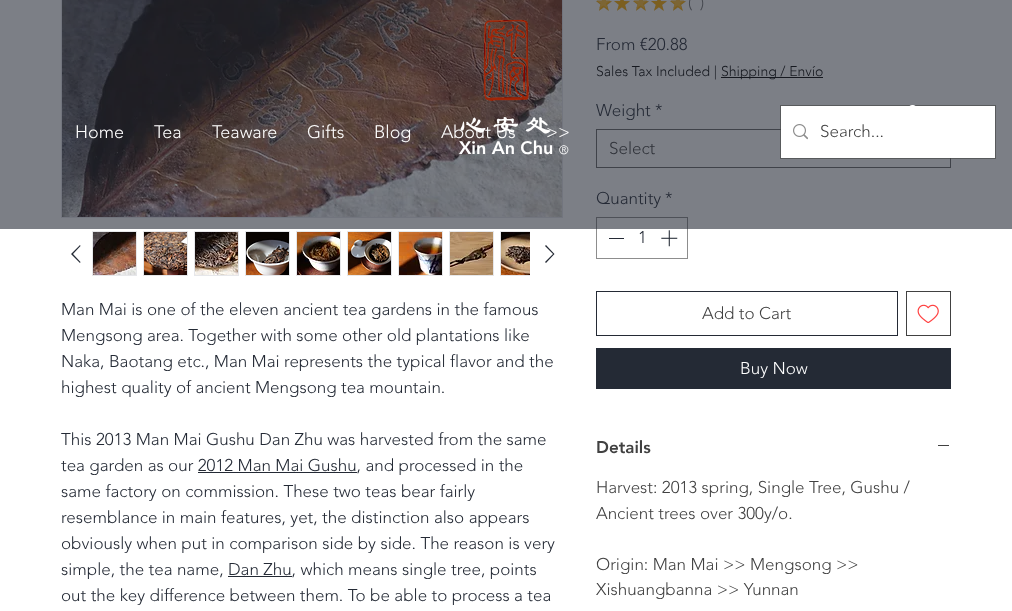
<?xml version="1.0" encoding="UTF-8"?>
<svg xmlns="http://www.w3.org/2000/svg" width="1012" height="611">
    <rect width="100%" height="100%" fill="#FFFFFF"/>
    <rect x="61.5" y="-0.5" width="501" height="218" fill="none" stroke="#E6E7EA"/>
    <image x="62" y="0" width="500" height="217" href="img_01.png"/>
    <path d="M 80 245 L 80.5 246 L 73 254 L 80.5 262 L 80 263 L 71 254 Z" fill="#242A35" fill-rule="evenodd"/>
    <rect x="92" y="231" width="45" height="45" fill="#E6E7EA"/>
    <image x="93" y="232" width="43" height="43" href="img_02.png"/>
    <rect x="143" y="231" width="45" height="45" fill="#E6E7EA"/>
    <image x="144" y="232" width="43" height="43" href="img_03.png"/>
    <rect x="194" y="231" width="45" height="45" fill="#E6E7EA"/>
    <image x="195" y="232" width="43" height="43" href="img_04.png"/>
    <rect x="245" y="231" width="45" height="45" fill="#E6E7EA"/>
    <image x="246" y="232" width="43" height="43" href="img_05.png"/>
    <rect x="296" y="231" width="45" height="45" fill="#E6E7EA"/>
    <image x="297" y="232" width="43" height="43" href="img_06.png"/>
    <rect x="347" y="231" width="45" height="45" fill="#E6E7EA"/>
    <image x="348" y="232" width="43" height="43" href="img_07.png"/>
    <rect x="398" y="231" width="45" height="45" fill="#E6E7EA"/>
    <image x="399" y="232" width="43" height="43" href="img_08.png"/>
    <rect x="449" y="231" width="45" height="45" fill="#E6E7EA"/>
    <image x="450" y="232" width="43" height="43" href="img_09.png"/>
    <rect x="500" y="231" width="30" height="45" fill="#E6E7EA"/>
    <image x="501" y="232" width="29" height="43" href="img_10.png"/>
    <path d="M 546 245 L 554.5 254 L 546 263 L 545 262 L 553 254 L 545 246 Z" fill="#242A35" fill-rule="evenodd"/>
    <text font-family="'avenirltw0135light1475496'" font-size="17" font-weight="300" fill="#242A35">
        <tspan x="61" y="315">Man Mai is one of the eleven ancient tea gardens in the famous</tspan>
        <tspan x="61" y="341">Mengsong area. Together with some other old plantations like</tspan>
        <tspan x="61" y="367">Naka, Baotang etc., Man Mai represents the typical flavor and the</tspan>
        <tspan x="61" y="393">highest quality of ancient Mengsong tea mountain.</tspan>
    </text>
    <text font-family="'avenirltw0135light1475496'" font-size="17" font-weight="300" fill="#242A35">
        <tspan x="61" y="445">This 2013 Man Mai Gushu Dan Zhu was harvested from the same</tspan>
        <tspan x="61" y="471">tea garden as our 2012 Man Mai Gushu, and processed in the</tspan>
    </text>
    <rect x="198" y="472" width="159" height="1" fill="#242A35"/>
    <text font-family="'avenirltw0135light1475496'" font-size="17" font-weight="300" fill="#242A35">
        <tspan x="61" y="497">same factory on commission. These two teas bear fairly</tspan>
        <tspan x="61" y="523">resemblance in main features, yet, the distinction also appears</tspan>
        <tspan x="61" y="549">obviously when put in comparison side by side. The reason is very</tspan>
        <tspan x="61" y="575">simple, the tea name, Dan Zhu, which means single tree, points</tspan>
    </text>
    <rect x="228" y="576" width="64" height="1" fill="#242A35"/>
    <text x="61" y="601" font-family="'avenirltw0135light1475496'" font-size="17" font-weight="300" fill="#242A35">out the key difference between them. To be able to process a tea</text>
    <image x="596" y="0" width="16" height="11" href="img_11.png"/>
    <image x="614" y="0" width="16" height="11" href="img_11.png"/>
    <image x="633" y="0" width="16" height="11" href="img_11.png"/>
    <image x="651" y="0" width="16" height="11" href="img_11.png"/>
    <image x="670" y="0" width="16" height="11" href="img_11.png"/>
    <image x="596" y="0" width="16" height="11" href="img_12.png"/>
    <text x="596" y="8" font-family="DejaVu Sans" font-size="16" font-weight="700" fill="#FEBD32">★</text>
    <image x="614" y="0" width="16" height="11" href="img_12.png"/>
    <image x="633" y="0" width="16" height="11" href="img_13.png"/>
    <text x="633" y="8" font-family="DejaVu Sans" font-size="16" font-weight="700" fill="#FEBD32">★</text>
    <image x="651" y="0" width="16" height="11" href="img_12.png"/>
    <image x="670" y="0" width="16" height="11" href="img_14.png"/>
    <text x="670" y="8" font-family="DejaVu Sans" font-size="16" font-weight="700" fill="#FEBD32">★</text>
    <text x="688" y="8" font-family="'avenirltw0135light1475496'" font-size="16" font-weight="300" fill="#737373">(</text>
    <text x="700" y="8" font-family="'avenirltw0135light1475496'" font-size="16" font-weight="300" fill="#737373">)</text>
    <text x="596" y="50" font-family="'avenirltw0135light1475496'" font-size="17" font-weight="300" fill="#242A35">From €20.88</text>
    <text x="596" y="76" font-family="'avenirltw0135light1475496'" font-size="14" font-weight="300" fill="#000000">Sales Tax Included |</text>
    <rect x="721" y="77" width="102" height="1" fill="#000000"/>
    <text x="721" y="76" font-family="'avenirltw0135light1475496'" font-size="14" font-weight="300" fill="#000000">Shipping / Envío</text>
    <text x="596" y="116" font-family="'avenirltw0135light1475496'" font-size="17" font-weight="300" fill="#242A35">Weight</text>
    <text x="655" y="116" font-family="'avenirltw0135light1475496'" font-size="17" font-weight="300" fill="#242A35">*</text>
    <rect x="596.5" y="129.5" width="354" height="38" fill="none" stroke="#666666"/>
    <text x="609" y="154" font-family="'avenirltw0135light1475496'" font-size="17" font-weight="300" fill="#414141">Select</text>
    <text x="596" y="204" font-family="'avenirltw0135light1475496'" font-size="17" font-weight="300" fill="#242A35">Quantity</text>
    <text x="665" y="204" font-family="'avenirltw0135light1475496'" font-size="17" font-weight="300" fill="#242A35">*</text>
    <rect x="596.5" y="217.5" width="91" height="41" fill="none" stroke="#8D8D8D"/>
    <rect x="609" y="238" width="15" height="1" fill="#242A35"/>
    <text x="638" y="243" font-family="'avenirltw0135light1475496'" font-size="17" font-weight="300" fill="#242A35">1</text>
    <image x="661" y="230" width="17" height="17" href="img_15.png"/>
    <rect x="596.5" y="291.5" width="301" height="44" fill="none" stroke="#242A35"/>
    <text x="702" y="319" font-family="'avenirltw0135light1475496'" font-size="17" font-weight="300" fill="#414141">Add to Cart</text>
    <rect x="906.5" y="291.5" width="44" height="44" fill="none" stroke="#414141"/>
    <image x="917" y="304" width="22" height="19" href="img_16.png"/>
    <rect x="596" y="348" width="355" height="41" fill="#242A35"/>
    <text x="740" y="374" font-family="'avenirltw0135light1475496'" font-size="17" font-weight="300" fill="#FFFFFF">Buy Now</text>
    <text x="596" y="453" font-family="'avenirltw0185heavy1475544'" font-size="17" font-weight="900" fill="#414141">Details</text>
    <rect x="938" y="445" width="11" height="1" fill="#414141"/>
    <text font-family="'avenirltw0135light1475496'" font-size="17" font-weight="300" fill="#414141">
        <tspan x="596" y="493">Harvest: 2013 spring, Single Tree, Gushu /</tspan>
        <tspan x="596" y="519">Ancient trees over 300y/o.</tspan>
    </text>
    <text font-family="'avenirltw0135light1475496'" font-size="17" font-weight="300" fill="#414141">
        <tspan x="596" y="570">Origin: Man Mai &gt;&gt; Mengsong &gt;&gt;</tspan>
        <tspan x="596" y="595">Xishuangbanna &gt;&gt; Yunnan</tspan>
    </text>
    <rect x="0" y="0" width="1012" height="229" fill="#242A35" fill-opacity="0.6"/>
    <rect x="780.5" y="105.5" width="215" height="53" fill="none" stroke="#414141" stroke-opacity="0.6"/>
    <image x="909" y="105" width="7" height="1" href="img_17.png"/>
    <rect x="781" y="106" width="214" height="52" fill="#FFFFFF"/>
    <text x="820" y="137" font-family="'avenirltw0135light1475496'" font-size="17" font-weight="300" fill="#414141">Search...</text>
    <image x="841" y="128" width="10" height="2" href="img_18.png"/>
    <image x="842" y="136" width="8" height="2" href="img_19.png"/>
    <text x="75" y="138" font-family="'avenirltw0135light1475496'" font-size="18" font-weight="300" fill="#FFFFFF">Home</text>
    <text x="154" y="138" font-family="'avenirltw0135light1475496'" font-size="18" font-weight="300" fill="#FFFFFF">Tea</text>
    <text x="212" y="138" font-family="'avenirltw0135light1475496'" font-size="18" font-weight="300" fill="#FFFFFF">Teaware</text>
    <text x="307" y="138" font-family="'avenirltw0135light1475496'" font-size="18" font-weight="300" fill="#FFFFFF">Gifts</text>
    <text x="374" y="138" font-family="'avenirltw0135light1475496'" font-size="18" font-weight="300" fill="#FFFFFF">Blog</text>
    <text x="460" y="134" font-family="'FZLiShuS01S'" font-size="26" fill="#FFFFFF">心 安 处</text>
    <text x="441" y="138" font-family="'avenirltw0135light1475496'" font-size="18" font-weight="300" fill="#FFFFFF">About Us</text>
    <text x="546" y="138" font-family="'avenirltw0135light1475496'" font-size="18" font-weight="300" fill="#FFFFFF">&gt;&gt;</text>
    <image x="483" y="19" width="46" height="83" href="img_20.png"/>
    <text x="459" y="154" font-family="'avenirltw0185heavy1475544'" font-size="18" font-weight="900" fill="#FFFFFF">Xin An Chu</text>
    <text x="559" y="154" font-family="'avenirltw0135light1475496'" font-size="12" font-weight="300" fill="#FFFFFF">®</text>
    <image x="793" y="124" width="15" height="16" href="img_21.png"/>
</svg>
